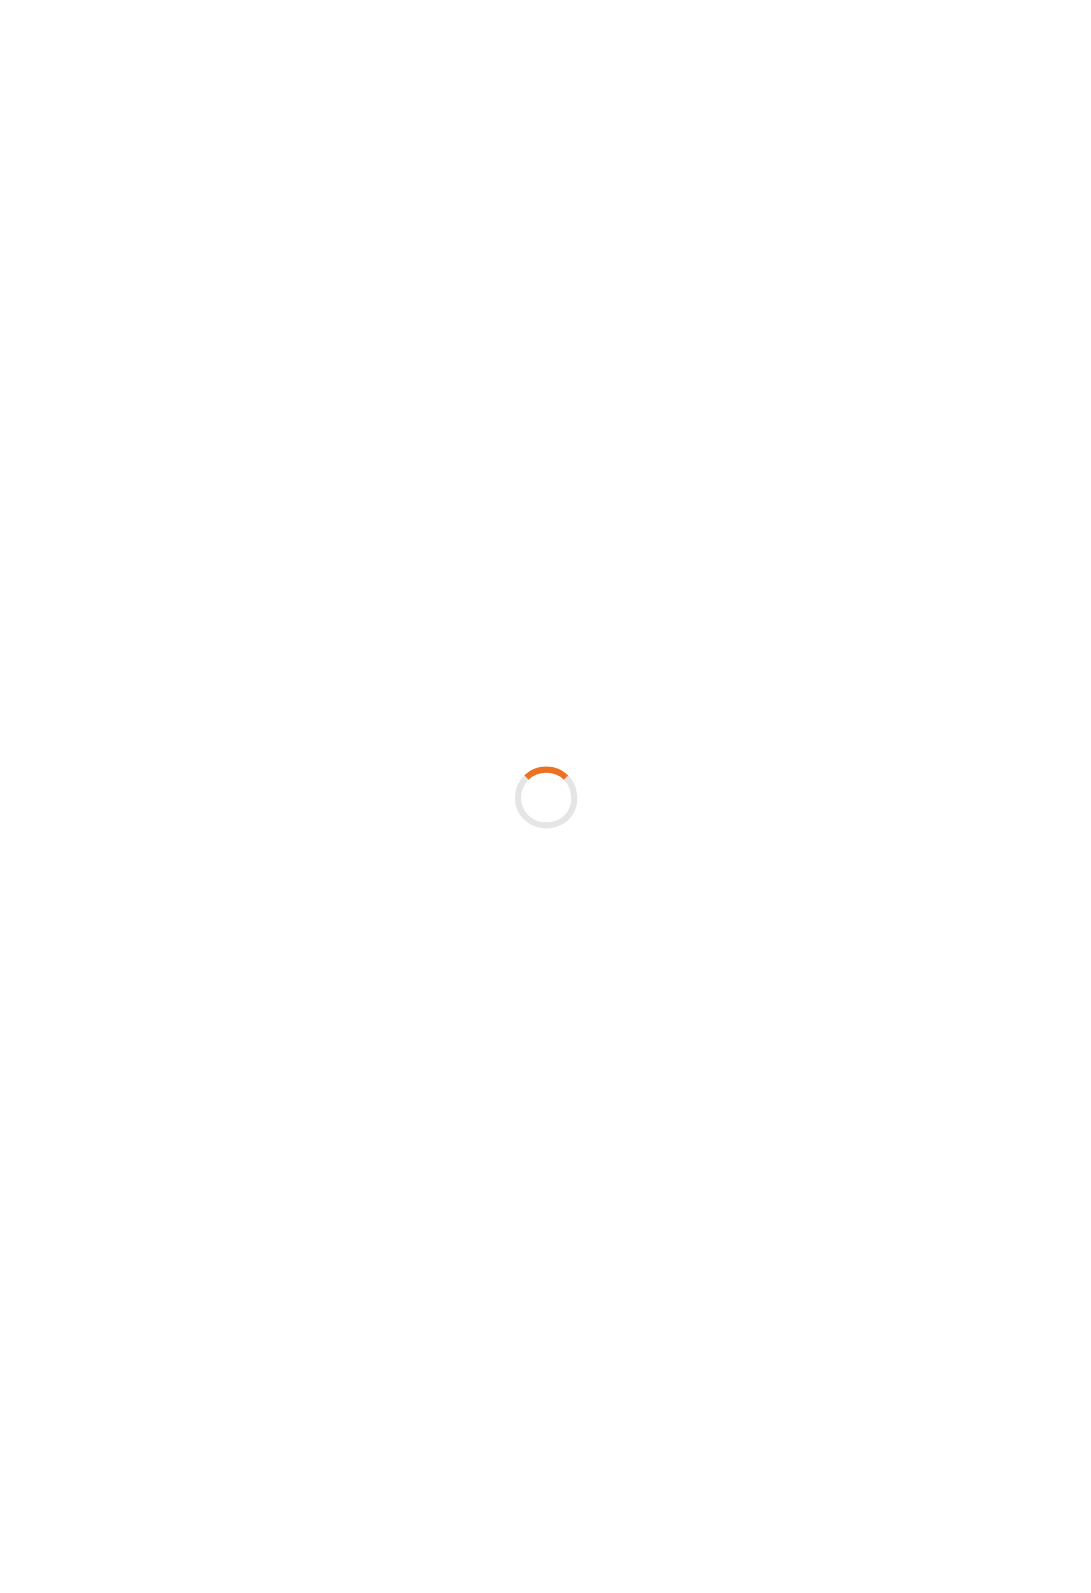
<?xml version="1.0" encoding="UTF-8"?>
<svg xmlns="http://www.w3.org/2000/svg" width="1091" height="1593">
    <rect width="100%" height="100%" fill="#FFFFFF"/>
    <path d="M 526.5 777.5 C 537 767 555.5 767 566 777.5" fill="none" stroke="#EC7120" stroke-width="6.2"/>
    <path d="M 566 777.5 C 572.5 784 575.5 794 574 803 C 567.5 836 518 831 518 797.5 C 518 790 521 783 526.5 777.5" fill="none" stroke="#000000" stroke-opacity="0.1" stroke-width="6.2"/>
</svg>
